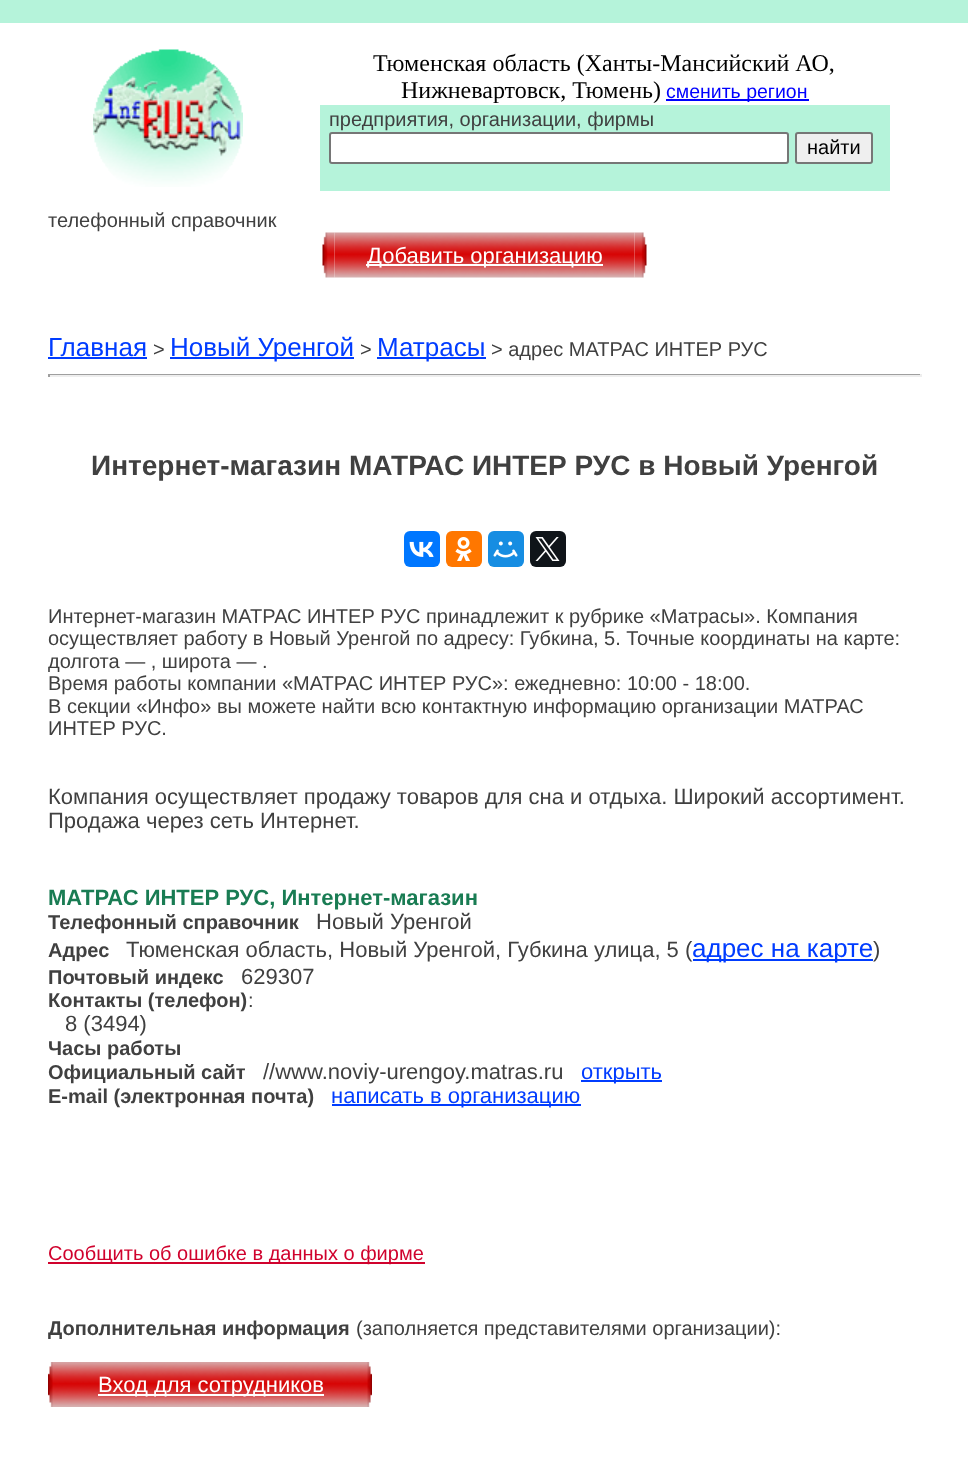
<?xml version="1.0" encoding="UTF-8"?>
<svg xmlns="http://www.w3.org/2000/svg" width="968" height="1467">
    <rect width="100%" height="100%" fill="#FFFFFF"/>
    <rect x="0" y="0" width="968" height="23" fill="#B5F3DA"/>
    <image x="93" y="49" width="150" height="138" href="img_01.png"/>
    <text x="373" y="71" font-family="Liberation Serif" font-size="24" fill="#000000">Тюменская область (Ханты-Мансийский АО,</text>
    <text x="401" y="98" font-family="Liberation Serif" font-size="24" fill="#000000">Нижневартовск, Тюмень)</text>
    <rect x="666" y="99" width="143" height="2" fill="#0000FF"/>
    <text x="666" y="98" font-family="Liberation Sans" font-size="19.5" fill="#0000FF">сменить регион</text>
    <rect x="320" y="105" width="570" height="59" fill="#B5F3DA"/>
    <text x="329" y="126" font-family="Liberation Sans" font-size="20" fill="#404040">предприятия, организации, фирмы</text>
    <rect x="330" y="133" width="458" height="30" rx="2" fill="#FFFFFF" stroke="#767676" stroke-width="2"/>
    <rect x="796" y="133" width="76" height="30" rx="2" fill="#EFEFEF" stroke="#767676" stroke-width="2"/>
    <text x="807" y="154" font-family="Liberation Sans" font-size="20" fill="#000000">найти</text>
    <rect x="320" y="164" width="570" height="27" fill="#B5F3DA"/>
    <text x="48" y="227" font-family="Liberation Sans" font-size="20" fill="#404040">телефонный справочник</text>
    <image x="322" y="232" width="13" height="46" href="img_02.png"/>
    <image x="334" y="232" width="301" height="46" href="img_03.png"/>
    <rect x="366" y="264" width="237" height="2" fill="#FFFFFF"/>
    <text x="367" y="263" font-family="Liberation Sans" font-size="22" fill="#FFFFFF">Добавить организацию</text>
    <image x="634" y="232" width="13" height="46" href="img_04.png"/>
    <text x="48" y="356" font-family="Liberation Sans" font-size="26" fill="#003CFF">Главная</text>
    <rect x="48" y="357" width="99" height="2" fill="#003CFF"/>
    <text x="153" y="356" font-family="Liberation Sans" font-size="20" fill="#404040">&gt;</text>
    <rect x="170" y="357" width="184" height="2" fill="#003CFF"/>
    <text x="170" y="356" font-family="Liberation Sans" font-size="26" fill="#003CFF">Новый Уренгой</text>
    <text x="360" y="356" font-family="Liberation Sans" font-size="20" fill="#404040">&gt;</text>
    <rect x="377" y="357" width="109" height="2" fill="#003CFF"/>
    <text x="377" y="356" font-family="Liberation Sans" font-size="26" fill="#003CFF">Матрасы</text>
    <text x="491" y="356" font-family="Liberation Sans" font-size="20" fill="#404040">&gt; адрес МАТРАС ИНТЕР РУС</text>
    <rect x="48" y="374" width="873" height="1" fill="#9F9F9F"/>
    <rect x="920" y="374" width="2" height="3" fill="#EEEEEE"/>
    <rect x="48" y="375" width="873" height="2" fill="#EEEEEE"/>
    <rect x="48" y="374" width="2" height="3" fill="#9F9F9F"/>
    <text x="91" y="475" font-family="Liberation Sans" font-size="28" font-weight="700" fill="#404040">Интернет-магазин МАТРАС ИНТЕР РУС в Новый Уренгой</text>
    <rect x="404" y="531" width="36" height="36" rx="6" fill="#0077FF"/>
    <image x="409" y="541" width="25" height="16" href="img_05.png"/>
    <rect x="446" y="531" width="36" height="36" rx="6" fill="#FF7700"/>
    <image x="455" y="537" width="17" height="24" href="img_06.png"/>
    <rect x="488" y="531" width="36" height="36" rx="6" fill="#168DE2"/>
    <image x="493" y="541" width="25" height="17" href="img_07.png"/>
    <rect x="530" y="531" width="36" height="36" rx="6" fill="#0F1419"/>
    <image x="535" y="537" width="25" height="24" href="img_08.png"/>
    <text font-family="Liberation Sans" font-size="20" fill="#404040">
        <tspan x="48" y="623">Интернет-магазин МАТРАС ИНТЕР РУС принадлежит к рубрике «Матрасы». Компания</tspan>
        <tspan x="48" y="645">осуществляет работу в Новый Уренгой по адресу: Губкина, 5. Точные координаты на карте:</tspan>
        <tspan x="48" y="668">долгота — , широта — .</tspan>
        <tspan x="48" y="690">Время работы компании «МАТРАС ИНТЕР РУС»: ежедневно: 10:00 - 18:00.</tspan>
        <tspan x="48" y="713">В секции «Инфо» вы можете найти всю контактную информацию организации МАТРАС</tspan>
        <tspan x="48" y="735">ИНТЕР РУС.</tspan>
    </text>
    <text font-family="Liberation Sans" font-size="22" fill="#404040">
        <tspan x="48" y="804">Компания осуществляет продажу товаров для сна и отдыха. Широкий ассортимент.</tspan>
        <tspan x="48" y="828">Продажа через сеть Интернет.</tspan>
    </text>
    <text x="48" y="905" font-family="Liberation Sans" font-size="22" font-weight="700" fill="#197C53">МАТРАС ИНТЕР РУС, Интернет-магазин</text>
    <text x="48" y="929" font-family="Liberation Sans" font-size="20" font-weight="700" fill="#404040">Телефонный справочник</text>
    <text x="316" y="929" font-family="Liberation Sans" font-size="22" fill="#404040">Новый Уренгой</text>
    <text x="48" y="957" font-family="Liberation Sans" font-size="20" font-weight="700" fill="#404040">Адрес</text>
    <text x="126" y="957" font-family="Liberation Sans" font-size="22" fill="#404040">Тюменская область, Новый Уренгой, Губкина улица, 5 (</text>
    <rect x="693" y="959" width="180" height="2" fill="#003CFF"/>
    <text x="692" y="957" font-family="Liberation Sans" font-size="26" fill="#003CFF">адрес на карте</text>
    <text x="873" y="957" font-family="Liberation Sans" font-size="22" fill="#404040">)</text>
    <text x="48" y="984" font-family="Liberation Sans" font-size="20" font-weight="700" fill="#404040">Почтовый индекс</text>
    <text x="241" y="984" font-family="Liberation Sans" font-size="22" fill="#404040">629307</text>
    <text x="48" y="1007" font-family="Liberation Sans" font-size="20" font-weight="700" fill="#404040">Контакты (телефон)</text>
    <text x="248" y="1007" font-family="Liberation Sans" font-size="20" fill="#404040">:</text>
    <text x="65" y="1031" font-family="Liberation Sans" font-size="22" fill="#404040">8 (3494)</text>
    <text font-family="Liberation Sans" font-size="20" font-weight="700" fill="#404040">
        <tspan x="48" y="1055">Часы работы</tspan>
        <tspan x="48" y="1079">Официальный сайт</tspan>
    </text>
    <text x="263" y="1079" font-family="Liberation Sans" font-size="22" fill="#404040">//www.noviy-urengoy.matras.ru</text>
    <rect x="581" y="1080" width="81" height="2" fill="#003CFF"/>
    <text x="581" y="1079" font-family="Liberation Sans" font-size="22" fill="#003CFF">открыть</text>
    <text x="48" y="1103" font-family="Liberation Sans" font-size="20" font-weight="700" fill="#404040">E-mail (электронная почта)</text>
    <rect x="332" y="1104" width="249" height="2" fill="#003CFF"/>
    <text x="331" y="1103" font-family="Liberation Sans" font-size="22" fill="#003CFF">написать в организацию</text>
    <rect x="48" y="1262" width="377" height="2" fill="#D0022D"/>
    <text x="48" y="1260" font-family="Liberation Sans" font-size="20" fill="#D0022D">Сообщить об ошибке в данных о фирме</text>
    <text x="48" y="1335" font-family="Liberation Sans" font-size="20" font-weight="700" fill="#404040">Дополнительная информация</text>
    <text x="356" y="1335" font-family="Liberation Sans" font-size="20" fill="#404040">(заполняется представителями организации):</text>
    <image x="48" y="1362" width="12" height="45" href="img_09.png"/>
    <image x="60" y="1362" width="300" height="45" href="img_10.png"/>
    <rect x="98" y="1394" width="226" height="2" fill="#FFFFFF"/>
    <text x="98" y="1392" font-family="Liberation Sans" font-size="22" fill="#FFFFFF">Вход для сотрудников</text>
    <image x="360" y="1362" width="12" height="45" href="img_11.png"/>
</svg>
